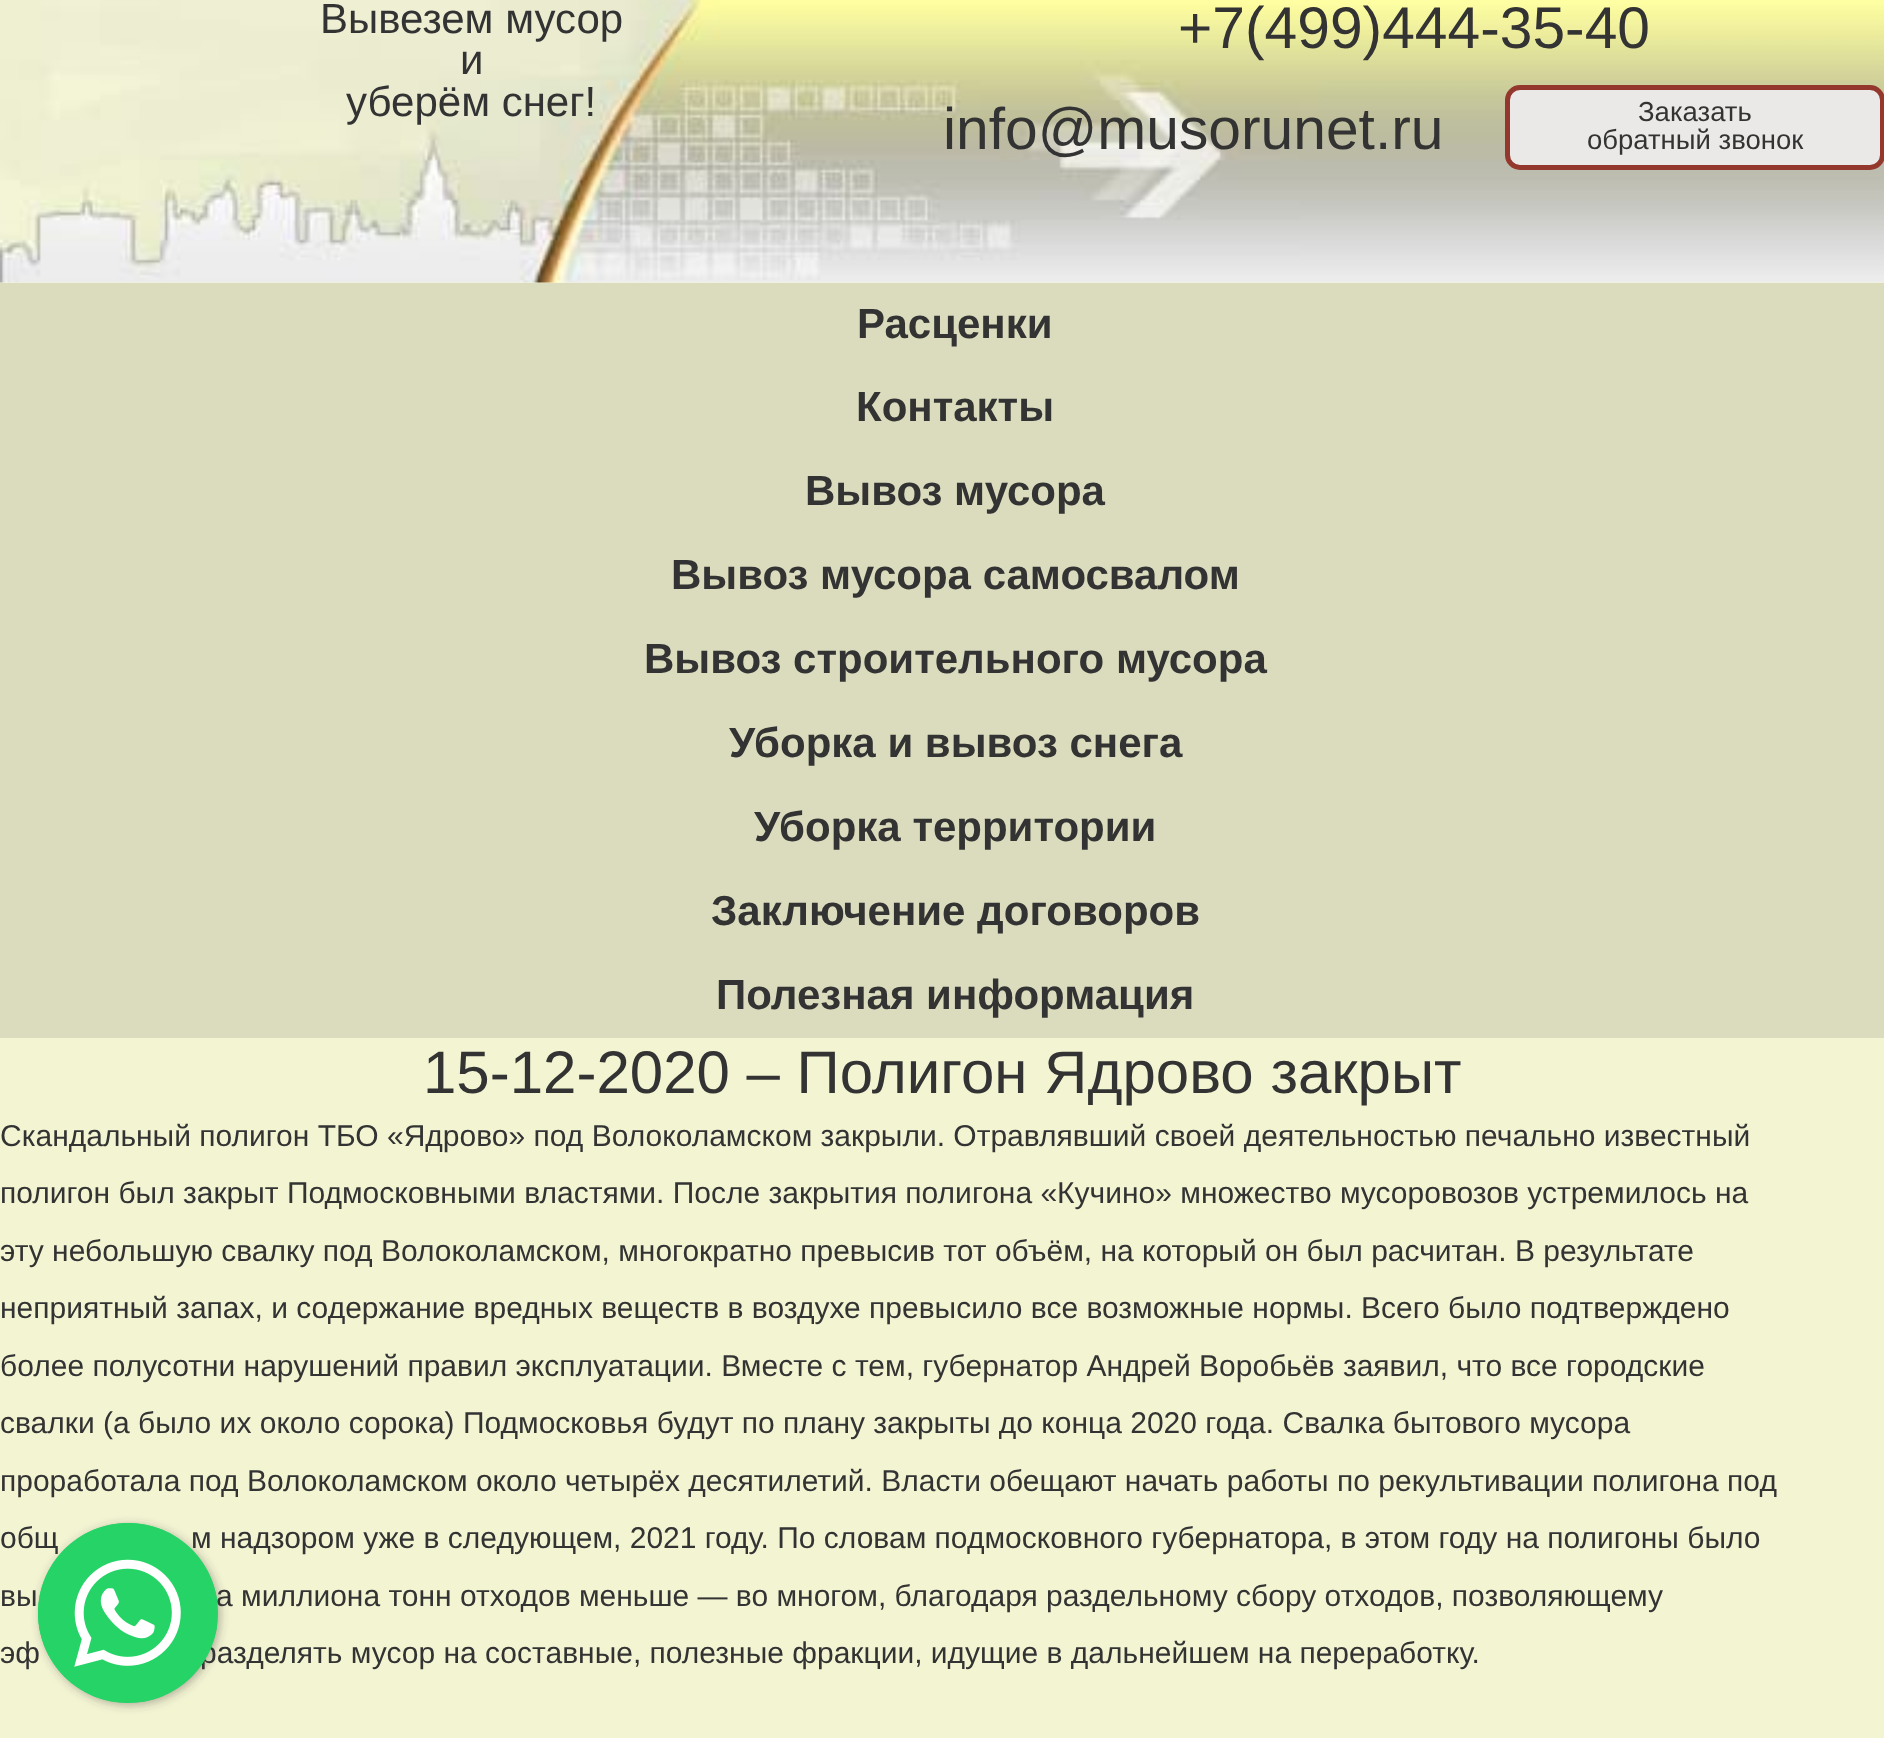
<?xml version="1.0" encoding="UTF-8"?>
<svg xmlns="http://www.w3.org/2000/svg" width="1884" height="1738">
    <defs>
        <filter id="blur1" x="-50%" y="-200%" width="200%" height="500%"><feGaussianBlur stdDeviation="5"/></filter>
    </defs>
    <rect width="100%" height="100%" fill="#F3F4D2"/>
    <image x="0" y="0" width="1884" height="283" href="img_01.png"/>
    <text x="320" y="33" font-family="Liberation Sans" font-size="42" fill="#333333">Вывезем мусор</text>
    <text x="460" y="74" font-family="Liberation Sans" font-size="42" fill="#333333">и</text>
    <text x="346" y="116" font-family="Liberation Sans" font-size="42" fill="#333333">уберём снег!</text>
    <text x="1178" y="48" font-family="Liberation Sans" font-size="58.75" fill="#333333">+7(499)444-35-40</text>
    <text x="943" y="149" font-family="Liberation Sans" font-size="58.75" fill="#333333">info@musorunet.ru</text>
    <rect x="1507.5" y="87.5" width="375" height="80" rx="12.5" fill="#EAE9E7" stroke="#94382D" stroke-width="5"/>
    <text x="1638" y="121" font-family="Liberation Sans" font-size="27.5" fill="#333333">Заказать</text>
    <text x="1587" y="149" font-family="Liberation Sans" font-size="27.5" fill="#333333">обратный звонок</text>
    <rect x="0" y="283" width="1884" height="755" fill="#DBDCBD"/>
    <text x="857" y="338" font-family="Liberation Sans" font-size="42" font-weight="700" fill="#333333">Расценки</text>
    <text x="856" y="421" font-family="Liberation Sans" font-size="42" font-weight="700" fill="#333333">Контакты</text>
    <text x="805" y="505" font-family="Liberation Sans" font-size="42" font-weight="700" fill="#333333">Вывоз мусора</text>
    <text x="671" y="589" font-family="Liberation Sans" font-size="42" font-weight="700" fill="#333333">Вывоз мусора самосвалом</text>
    <text x="644" y="673" font-family="Liberation Sans" font-size="42" font-weight="700" fill="#333333">Вывоз строительного мусора</text>
    <text x="729" y="757" font-family="Liberation Sans" font-size="42" font-weight="700" fill="#333333">Уборка и вывоз снега</text>
    <text x="754" y="841" font-family="Liberation Sans" font-size="42" font-weight="700" fill="#333333">Уборка территории</text>
    <text x="711" y="925" font-family="Liberation Sans" font-size="42" font-weight="700" fill="#333333">Заключение договоров</text>
    <text x="716" y="1009" font-family="Liberation Sans" font-size="42" font-weight="700" fill="#333333">Полезная информация</text>
    <text x="423" y="1093" font-family="Liberation Sans" font-size="60" fill="#333333">15-12-2020 – Полигон Ядрово закрыт</text>
    <text font-family="Liberation Sans" font-size="30" fill="#333333">
        <tspan x="0" y="1146">Скандальный полигон ТБО «Ядрово» под Волоколамском закрыли. Отравлявший своей деятельностью печально известный</tspan>
        <tspan x="0" y="1203">полигон был закрыт Подмосковными властями. После закрытия полигона «Кучино» множество мусоровозов устремилось на</tspan>
        <tspan x="0" y="1261">эту небольшую свалку под Волоколамском, многократно превысив тот объём, на который он был расчитан. В результате</tspan>
        <tspan x="0" y="1318">неприятный запах, и содержание вредных веществ в воздухе превысило все возможные нормы. Всего было подтверждено</tspan>
        <tspan x="0" y="1376">более полусотни нарушений правил эксплуатации. Вместе с тем, губернатор Андрей Воробьёв заявил, что все городские</tspan>
        <tspan x="0" y="1433">свалки (а было их около сорока) Подмосковья будут по плану закрыты до конца 2020 года. Свалка бытового мусора</tspan>
        <tspan x="0" y="1491">проработала под Волоколамском около четырёх десятилетий. Власти обещают начать работы по рекультивации полигона под</tspan>
        <tspan x="0" y="1548">общ</tspan>
    </text>
    <text x="191" y="1548" font-family="Liberation Sans" font-size="30" fill="#333333">м надзором уже в следующем, 2021 году. По словам подмосковного губернатора, в этом году на полигоны было</text>
    <text x="0" y="1606" font-family="Liberation Sans" font-size="30" fill="#333333">вы</text>
    <text x="216" y="1606" font-family="Liberation Sans" font-size="30" fill="#333333">а миллиона тонн отходов меньше — во многом, благодаря раздельному сбору отходов, позволяющему</text>
    <text x="0" y="1663" font-family="Liberation Sans" font-size="30" fill="#333333">эф</text>
    <text x="200" y="1663" font-family="Liberation Sans" font-size="30" fill="#333333">разделять мусор на составные, полезные фракции, идущие в дальнейшем на переработку.</text>
    <rect x="40" y="1525" width="180" height="180" rx="90" fill="#3C3C3C" fill-opacity="0.4" filter="url(#blur1)"/>
    <circle cx="128" cy="1613" r="90" fill="#25D366"/>
    <image x="38" y="1523" width="179" height="180" href="img_02.png"/>
</svg>
